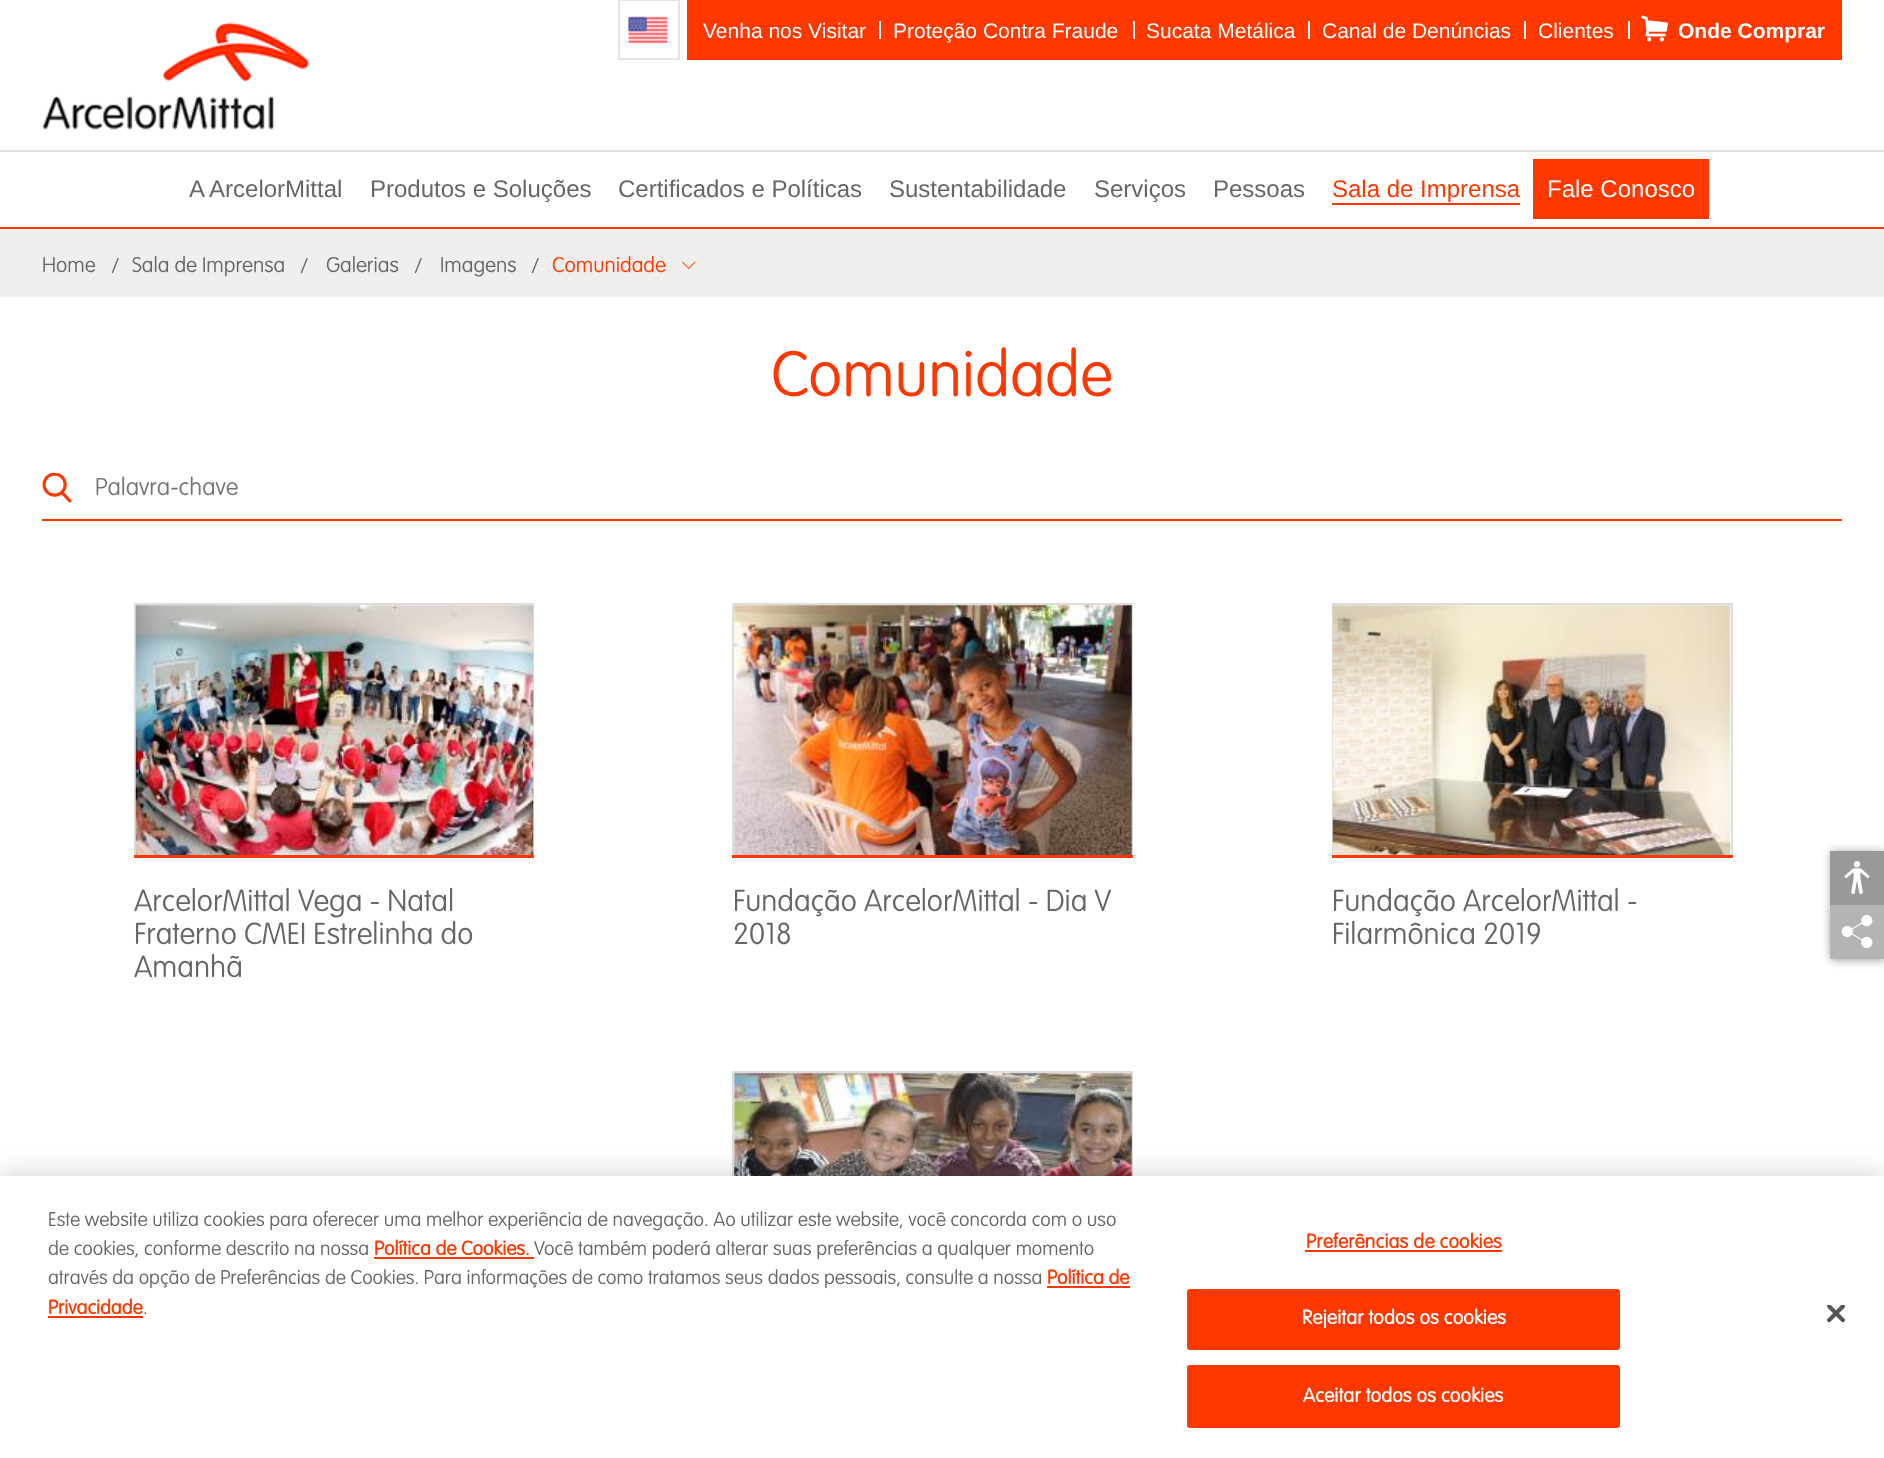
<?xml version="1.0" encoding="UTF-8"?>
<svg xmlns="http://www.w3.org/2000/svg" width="1884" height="1458">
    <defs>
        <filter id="blur1" x="-50%" y="-200%" width="200%" height="500%"><feGaussianBlur stdDeviation="4"/></filter>
        <filter id="blur2" x="-50%" y="-200%" width="200%" height="500%"><feGaussianBlur stdDeviation="13.5"/></filter>
    </defs>
    <rect width="100%" height="100%" fill="#FFFFFF"/>
    <image x="42" y="22" width="268" height="108" href="img_01.png"/>
    <image x="628" y="16" width="40" height="28" href="img_02.png"/>
    <rect x="619" y="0" width="60" height="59" fill="none" stroke="#E3E3E3" stroke-width="2"/>
    <rect x="687" y="0" width="1155" height="60" fill="#FF3700"/>
    <text x="703" y="38" font-family="Liberation Sans" font-size="21" fill="#FFFFFF">Venha nos Visitar</text>
    <rect x="879" y="21" width="2" height="18" fill="#FFFFFF"/>
    <text x="893" y="38" font-family="Liberation Sans" font-size="21" fill="#FFFFFF">Proteção Contra Fraude</text>
    <rect x="1133" y="21" width="2" height="18" fill="#FFFFFF"/>
    <text x="1146" y="38" font-family="Liberation Sans" font-size="21" fill="#FFFFFF">Sucata Metálica</text>
    <rect x="1308" y="21" width="2" height="18" fill="#FFFFFF"/>
    <text x="1322" y="38" font-family="Liberation Sans" font-size="21" fill="#FFFFFF">Canal de Denúncias</text>
    <rect x="1524" y="21" width="2" height="18" fill="#FFFFFF"/>
    <text x="1538" y="38" font-family="Liberation Sans" font-size="21" fill="#FFFFFF">Clientes</text>
    <rect x="1628" y="21" width="2" height="18" fill="#FFFFFF"/>
    <image x="1641" y="15" width="27" height="27" href="img_03.png"/>
    <text x="1678" y="38" font-family="Liberation Sans" font-size="21" font-weight="700" fill="#FFFFFF">Onde Comprar</text>
    <rect x="0" y="150" width="1884" height="2" fill="#E3E3E3"/>
    <rect x="0" y="227" width="1884" height="2" fill="#FF3700"/>
    <text x="189" y="197" font-family="Liberation Sans" font-size="24" fill="#666666">A ArcelorMittal</text>
    <text x="370" y="197" font-family="Liberation Sans" font-size="24" fill="#666666">Produtos e Soluções</text>
    <text x="618" y="197" font-family="Liberation Sans" font-size="24" fill="#666666">Certificados e Políticas</text>
    <text x="889" y="197" font-family="Liberation Sans" font-size="24" fill="#666666">Sustentabilidade</text>
    <text x="1094" y="197" font-family="Liberation Sans" font-size="24" fill="#666666">Serviços</text>
    <text x="1213" y="197" font-family="Liberation Sans" font-size="24" fill="#666666">Pessoas</text>
    <text x="1332" y="197" font-family="Liberation Sans" font-size="24" fill="#FF3700">Sala de Imprensa</text>
    <rect x="1332" y="203" width="188" height="2" fill="#FF3700"/>
    <rect x="1533" y="159" width="176" height="60" fill="#FF3700"/>
    <text x="1547" y="197" font-family="Liberation Sans" font-size="24" fill="#FFFFFF">Fale Conosco</text>
    <rect x="0" y="229" width="1884" height="68" fill="#F0EFED"/>
    <text x="42" y="272" font-family="'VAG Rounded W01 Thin'" font-size="21" font-weight="100" fill="#666666">Home</text>
    <text x="111" y="273" font-family="'VAG Rounded W01 Thin'" font-size="21" font-weight="100" fill="#666666">/</text>
    <text x="132" y="272" font-family="'VAG Rounded W01 Thin'" font-size="21" font-weight="100" fill="#666666">Sala de Imprensa</text>
    <text x="300" y="273" font-family="'VAG Rounded W01 Thin'" font-size="21" font-weight="100" fill="#666666">/</text>
    <text x="326" y="272" font-family="'VAG Rounded W01 Thin'" font-size="21" font-weight="100" fill="#666666">Galerias</text>
    <text x="414" y="273" font-family="'VAG Rounded W01 Thin'" font-size="21" font-weight="100" fill="#666666">/</text>
    <text x="440" y="272" font-family="'VAG Rounded W01 Thin'" font-size="21" font-weight="100" fill="#666666">Imagens</text>
    <text x="531" y="273" font-family="'VAG Rounded W01 Thin'" font-size="21" font-weight="100" fill="#666666">/</text>
    <text x="552" y="272" font-family="'VAG Rounded W01 Thin'" font-size="21" font-weight="100" fill="#FF3700">Comunidade</text>
    <image x="682" y="261" width="14" height="8" href="img_04.png"/>
    <text x="771" y="396" font-family="'VAG Rounded W01 Thin'" font-size="63" font-weight="100" fill="#FF3700">Comunidade</text>
    <image x="42" y="473" width="30" height="30" href="img_05.png"/>
    <rect x="42" y="519" width="1800" height="2" fill="#FF3700"/>
    <text x="95" y="495" font-family="'VAG Rounded W01 Thin'" font-size="24" font-weight="100" fill="#757575">Palavra-chave</text>
    <rect x="134" y="855" width="400" height="3" fill="#FF3700"/>
    <rect x="134" y="603" width="400" height="2" fill="#DDDDDD"/>
    <rect x="533" y="603" width="1" height="252" fill="#DDDDDD"/>
    <rect x="134" y="603" width="2" height="252" fill="#DDDDDD"/>
    <image x="135" y="605" width="399" height="250" href="img_06.png"/>
    <text font-family="'VAG Rounded W01 Thin'" font-size="30" font-weight="100" fill="#666666">
        <tspan x="134" y="911">ArcelorMittal Vega - Natal</tspan>
        <tspan x="134" y="944">Fraterno CMEI Estrelinha do</tspan>
        <tspan x="134" y="977">Amanhã</tspan>
    </text>
    <rect x="732" y="855" width="401" height="3" fill="#FF3700"/>
    <rect x="732" y="603" width="401" height="2" fill="#DDDDDD"/>
    <rect x="1131" y="603" width="2" height="252" fill="#DDDDDD"/>
    <rect x="732" y="603" width="2" height="252" fill="#DDDDDD"/>
    <image x="734" y="605" width="398" height="250" href="img_07.png"/>
    <text font-family="'VAG Rounded W01 Thin'" font-size="30" font-weight="100" fill="#666666">
        <tspan x="733" y="911">Fundação ArcelorMittal - Dia V</tspan>
        <tspan x="733" y="944">2018</tspan>
    </text>
    <rect x="1332" y="855" width="401" height="3" fill="#FF3700"/>
    <rect x="1332" y="603" width="401" height="2" fill="#DDDDDD"/>
    <rect x="1731" y="603" width="2" height="252" fill="#DDDDDD"/>
    <rect x="1332" y="603" width="2" height="252" fill="#DDDDDD"/>
    <image x="1332" y="605" width="399" height="250" href="img_08.png"/>
    <text font-family="'VAG Rounded W01 Thin'" font-size="30" font-weight="100" fill="#666666">
        <tspan x="1332" y="911">Fundação ArcelorMittal -</tspan>
        <tspan x="1332" y="944">Filarmônica 2019</tspan>
    </text>
    <rect x="732" y="1071" width="401" height="2" fill="#DDDDDD"/>
    <rect x="1131" y="1071" width="2" height="105" fill="#DDDDDD"/>
    <rect x="732" y="1071" width="2" height="105" fill="#DDDDDD"/>
    <image x="734" y="1073" width="398" height="103" href="img_09.png"/>
    <rect x="1830" y="851" width="54" height="108" fill="#000000" fill-opacity="0.3" filter="url(#blur1)"/>
    <rect x="1832" y="909" width="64" height="54" fill="#000000" fill-opacity="0.1" filter="url(#blur1)"/>
    <rect x="1830" y="851" width="54" height="54" fill="#999999"/>
    <image x="1844" y="861" width="26" height="33" href="img_10.png"/>
    <rect x="1830" y="905" width="54" height="54" fill="#B4B4B4"/>
    <image x="1841" y="915" width="32" height="33" href="img_11.png"/>
    <rect x="0" y="1176" width="1884" height="282" fill="#000000" fill-opacity="0.2" filter="url(#blur2)"/>
    <rect x="0" y="1176" width="1884" height="282" fill="#FFFFFF"/>
    <text font-family="'VAG Rounded W01 Thin'" font-size="19.5" font-weight="100" fill="#666666">
        <tspan x="48" y="1226">Este website utiliza cookies para oferecer uma melhor experiência de navegação. Ao utilizar este website, você concorda com o uso</tspan>
        <tspan x="48" y="1255">de cookies, conforme descrito na nossa</tspan>
    </text>
    <text x="374" y="1255" font-family="'VAG Rounded W01 Thin'" font-size="19.5" font-weight="700" fill="#FF3700">Política de Cookies.</text>
    <rect x="374" y="1257" width="160" height="2" fill="#FF3700"/>
    <text x="534" y="1255" font-family="'VAG Rounded W01 Thin'" font-size="19.5" font-weight="100" fill="#666666">Você também poderá alterar suas preferências a qualquer momento</text>
    <text x="48" y="1284" font-family="'VAG Rounded W01 Thin'" font-size="19.5" font-weight="100" fill="#666666">através da opção de Preferências de Cookies. Para informações de como tratamos seus dados pessoais, consulte a nossa</text>
    <text x="1047" y="1284" font-family="'VAG Rounded W01 Thin'" font-size="19.5" font-weight="700" fill="#FF3700">Política de</text>
    <rect x="1047" y="1286" width="83" height="2" fill="#FF3700"/>
    <text x="48" y="1314" font-family="'VAG Rounded W01 Thin'" font-size="19.5" font-weight="700" fill="#FF3700">Privacidade</text>
    <rect x="48" y="1316" width="95" height="2" fill="#FF3700"/>
    <text x="143" y="1314" font-family="'VAG Rounded W01 Thin'" font-size="19.5" font-weight="100" fill="#666666">.</text>
    <text x="1306" y="1248" font-family="'VAG Rounded W01 Thin'" font-size="19.5" font-weight="700" letter-spacing="0.2" fill="#FF3700">Preferências de cookies</text>
    <rect x="1305" y="1250" width="197" height="2" fill="#FF3700"/>
    <rect x="1188" y="1290" width="431" height="59" rx="2" fill="#FF3700" stroke="#FF3700" stroke-width="2"/>
    <text x="1302" y="1324" font-family="'VAG Rounded W01 Thin'" font-size="19.5" font-weight="700" letter-spacing="0.2" fill="#FFFFFF">Rejeitar todos os cookies</text>
    <rect x="1188" y="1366" width="431" height="61" rx="2" fill="#FF3700" stroke="#FF3700" stroke-width="2"/>
    <text x="1303" y="1402" font-family="'VAG Rounded W01 Thin'" font-size="19.5" font-weight="700" letter-spacing="0.2" fill="#FFFFFF">Aceitar todos os cookies</text>
    <image x="1827" y="1305" width="18" height="18" href="img_12.png"/>
</svg>
